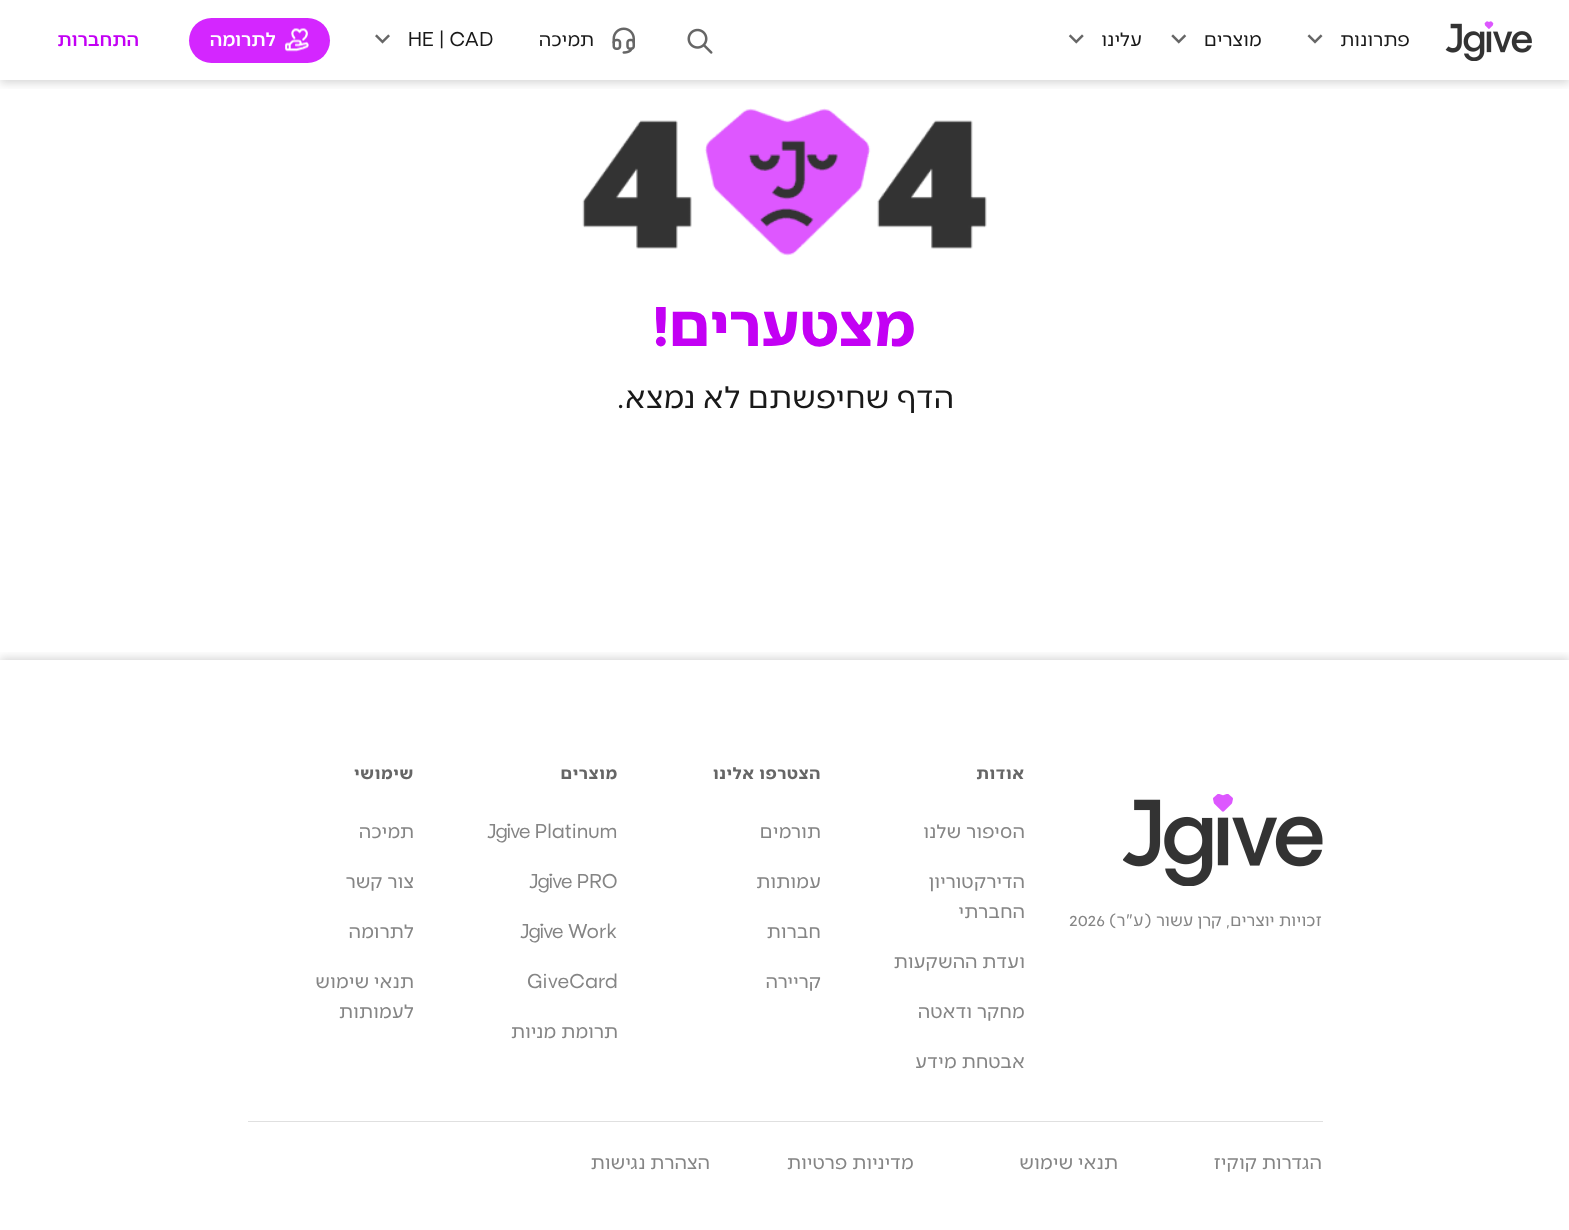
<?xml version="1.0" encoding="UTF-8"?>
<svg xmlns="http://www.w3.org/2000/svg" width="1569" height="1230">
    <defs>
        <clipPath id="clip1"><rect x="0" y="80" width="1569" height="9"/></clipPath>
        <filter id="blur1" x="-50%" y="-200%" width="200%" height="500%"><feGaussianBlur stdDeviation="5"/></filter>
        <clipPath id="clip2"><rect x="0" y="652" width="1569" height="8"/></clipPath>
    </defs>
    <rect width="100%" height="100%" fill="#FFFFFF"/>
    <g clip-path="url(#clip1)">
        <rect x="0" y="3" width="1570" height="80" fill="#000000" fill-opacity="0.16" filter="url(#blur1)"/>
    </g>
    <image x="1445" y="21" width="87" height="40" href="img_01.png"/>
    <text x="1410" y="46" font-family="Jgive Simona" font-size="20" direction="rtl" fill="#191919">פתרונות</text>
    <image x="1307" y="34" width="16" height="10" href="img_02.png"/>
    <text x="1262" y="46" font-family="Jgive Simona" font-size="20" direction="rtl" fill="#191919">מוצרים</text>
    <image x="1171" y="34" width="16" height="10" href="img_03.png"/>
    <text x="1142" y="46" font-family="Jgive Simona" font-size="20" direction="rtl" fill="#191919">עלינו</text>
    <image x="1068" y="34" width="16" height="10" href="img_04.png"/>
    <image x="687" y="28" width="26" height="26" href="img_05.png"/>
    <image x="612" y="27" width="23" height="27" href="img_06.png"/>
    <text x="594" y="46" font-family="Jgive Simona" font-size="20" direction="rtl" fill="#191919">תמיכה</text>
    <text x="408" y="46" font-family="Jgive Simona" font-size="20" fill="#191919">HE | CAD</text>
    <image x="375" y="34" width="15" height="10" href="img_07.png"/>
    <rect x="189" y="18" width="141" height="45" rx="22.5" fill="#D426FF"/>
    <image x="285" y="28" width="24" height="24" href="img_08.png"/>
    <text x="276" y="46" font-family="Jgive Simona" font-size="20" font-weight="500" direction="rtl" fill="#FFFFFF">לתרומה</text>
    <text x="139" y="46" font-family="Jgive Simona" font-size="20" font-weight="500" direction="rtl" fill="#C300F4">התחברות</text>
    <image x="582" y="108" width="405" height="148" href="img_09.png"/>
    <text x="916" y="346" font-family="Jgive Simona" font-size="62.5" font-weight="700" direction="rtl" fill="#C300F4">מצטערים!</text>
    <text x="954" y="408" font-family="Jgive Simona" font-size="32.5" direction="rtl" fill="#191919">הדף שחיפשתם לא נמצא.</text>
    <g clip-path="url(#clip2)">
        <rect x="0" y="658" width="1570" height="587" fill="#000000" fill-opacity="0.16" filter="url(#blur1)"/>
    </g>
    <image x="1123" y="794" width="200" height="92" href="img_10.png"/>
    <text x="1322" y="926" font-family="Jgive Simona" font-size="17.5" direction="rtl" fill="#858585">זכויות יוצרים, קרן עשור (ע"ר)</text>
    <text x="1069" y="926" font-family="Jgive Simona" font-size="17.5" fill="#858585">2026</text>
    <text x="1025" y="779" font-family="Jgive Simona" font-size="17.5" font-weight="700" letter-spacing="0.75" direction="rtl" fill="#666666">אודות</text>
    <text x="1025" y="838" font-family="Jgive Simona" font-size="20" direction="rtl" fill="#858585">הסיפור שלנו</text>
    <text font-family="Jgive Simona" font-size="20" direction="rtl" fill="#858585">
        <tspan x="1025" y="888">הדירקטוריון</tspan>
        <tspan x="1025" y="918">החברתי</tspan>
    </text>
    <text x="1025" y="968" font-family="Jgive Simona" font-size="20" direction="rtl" fill="#858585">ועדת ההשקעות</text>
    <text x="1025" y="1018" font-family="Jgive Simona" font-size="20" direction="rtl" fill="#858585">מחקר ודאטה</text>
    <text x="1025" y="1068" font-family="Jgive Simona" font-size="20" direction="rtl" fill="#858585">אבטחת מידע</text>
    <text x="821" y="779" font-family="Jgive Simona" font-size="17.5" font-weight="700" letter-spacing="0.75" direction="rtl" fill="#666666">הצטרפו אלינו</text>
    <text x="821" y="838" font-family="Jgive Simona" font-size="20" direction="rtl" fill="#858585">תורמים</text>
    <text x="821" y="888" font-family="Jgive Simona" font-size="20" direction="rtl" fill="#858585">עמותות</text>
    <text x="821" y="938" font-family="Jgive Simona" font-size="20" direction="rtl" fill="#858585">חברות</text>
    <text x="821" y="988" font-family="Jgive Simona" font-size="20" direction="rtl" fill="#858585">קריירה</text>
    <text x="618" y="779" font-family="Jgive Simona" font-size="17.5" font-weight="700" letter-spacing="0.75" direction="rtl" fill="#666666">מוצרים</text>
    <text x="487" y="838" font-family="Jgive Simona" font-size="20" fill="#858585">Jgive Platinum</text>
    <text x="529" y="888" font-family="Jgive Simona" font-size="20" fill="#858585">Jgive PRO</text>
    <text x="520" y="938" font-family="Jgive Simona" font-size="20" fill="#858585">Jgive Work</text>
    <text x="527" y="988" font-family="Jgive Simona" font-size="20" fill="#858585">GiveCard</text>
    <text x="618" y="1038" font-family="Jgive Simona" font-size="20" direction="rtl" fill="#858585">תרומת מניות</text>
    <text x="414" y="779" font-family="Jgive Simona" font-size="17.5" font-weight="700" letter-spacing="0.75" direction="rtl" fill="#666666">שימושי</text>
    <text x="414" y="838" font-family="Jgive Simona" font-size="20" direction="rtl" fill="#858585">תמיכה</text>
    <text x="414" y="888" font-family="Jgive Simona" font-size="20" direction="rtl" fill="#858585">צור קשר</text>
    <text x="414" y="938" font-family="Jgive Simona" font-size="20" direction="rtl" fill="#858585">לתרומה</text>
    <text font-family="Jgive Simona" font-size="20" direction="rtl" fill="#858585">
        <tspan x="414" y="988">תנאי שימוש</tspan>
        <tspan x="414" y="1018">לעמותות</tspan>
    </text>
    <rect x="248" y="1121" width="1075" height="1" fill="#E0E0E0"/>
    <text x="1322" y="1169" font-family="Jgive Simona" font-size="20" direction="rtl" fill="#858585">הגדרות קוקיז</text>
    <text x="1118" y="1169" font-family="Jgive Simona" font-size="20" direction="rtl" fill="#858585">תנאי שימוש</text>
    <text x="914" y="1169" font-family="Jgive Simona" font-size="20" direction="rtl" fill="#858585">מדיניות פרטיות</text>
    <text x="710" y="1169" font-family="Jgive Simona" font-size="20" direction="rtl" fill="#858585">הצהרת נגישות</text>
</svg>
